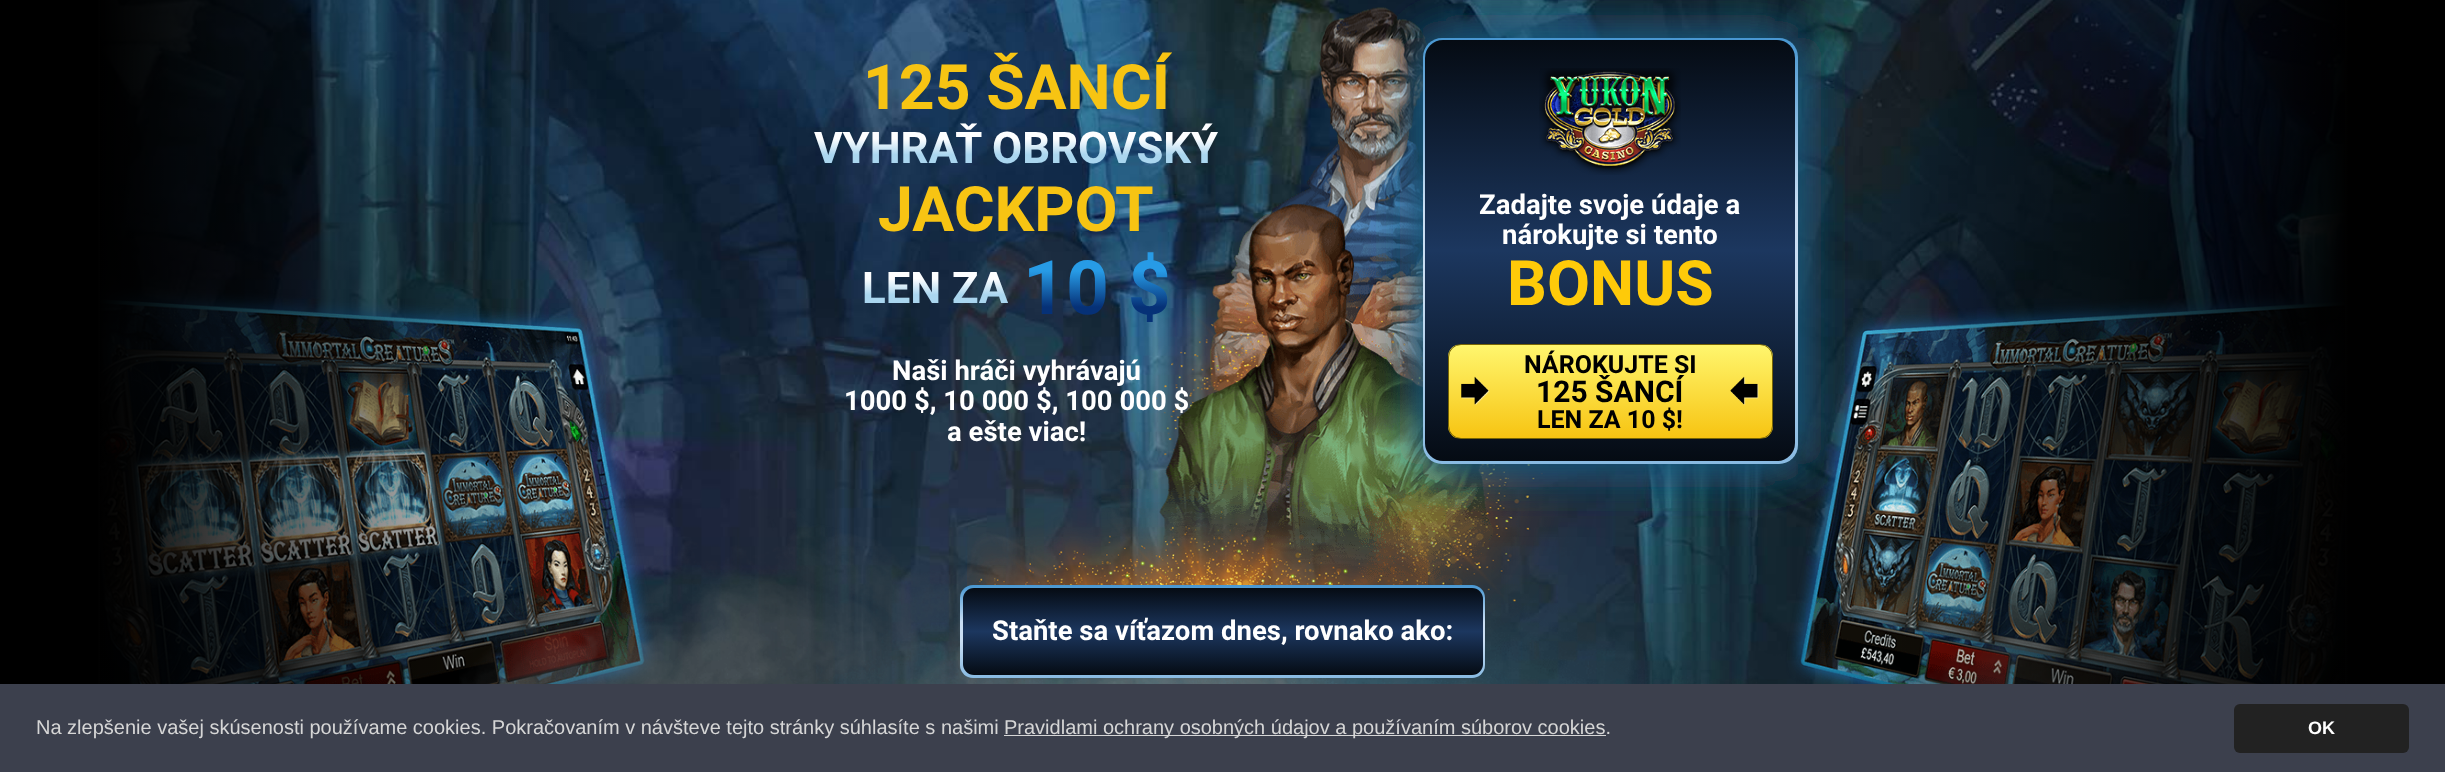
<?xml version="1.0" encoding="UTF-8"?>
<svg xmlns="http://www.w3.org/2000/svg" width="2445" height="772">
    <defs>
        <linearGradient id="g1" gradientUnits="userSpaceOnUse" x1="1016" y1="123" x2="1016" y2="176"><stop offset="0.3" stop-color="#FDFEFF"/><stop offset="0.6" stop-color="#AAD6EF"/></linearGradient>
        <linearGradient id="g2" gradientUnits="userSpaceOnUse" x1="935" y1="263" x2="935" y2="316"><stop offset="0.3" stop-color="#FDFEFF"/><stop offset="0.6" stop-color="#AAD6EF"/></linearGradient>
        <linearGradient id="g3" gradientUnits="userSpaceOnUse" x1="1097" y1="244" x2="1097" y2="334"><stop offset="0.3" stop-color="#279BE6"/><stop offset="0.7" stop-color="#063177"/></linearGradient>
        <filter id="blur1" x="-50%" y="-200%" width="200%" height="500%"><feGaussianBlur stdDeviation="25"/></filter>
        <linearGradient id="g4" gradientUnits="userSpaceOnUse" x1="2348" y1="406" x2="1848" y2="406"><stop offset="0" stop-color="#000000"/><stop offset="1" stop-color="#000000" stop-opacity="0"/></linearGradient>
        <linearGradient id="g5" gradientUnits="userSpaceOnUse" x1="97" y1="406" x2="598" y2="406"><stop offset="0" stop-color="#000000"/><stop offset="1" stop-color="#000000" stop-opacity="0"/></linearGradient>
        <linearGradient id="g6" gradientUnits="userSpaceOnUse" x1="1610" y1="37" x2="1610" y2="464"><stop offset="0" stop-color="#4796D1"/><stop offset="0.4" stop-color="#CADEF3"/><stop offset="0.6" stop-color="#CADEF3"/><stop offset="1" stop-color="#88BAE2"/></linearGradient>
        <linearGradient id="g7" gradientUnits="userSpaceOnUse" x1="1610" y1="40" x2="1610" y2="461"><stop offset="0" stop-color="#050B13"/><stop offset="0.5" stop-color="#1C375F"/><stop offset="1" stop-color="#050B13"/></linearGradient>
        <clipPath id="clip1"><rect x="1448" y="344" width="325" height="95" rx="13"/></clipPath>
        <linearGradient id="g8" gradientUnits="userSpaceOnUse" x1="1610" y1="345" x2="1610" y2="438"><stop offset="0" stop-color="#FFF66E"/><stop offset="1" stop-color="#F7C412"/></linearGradient>
        <linearGradient id="g9" gradientUnits="userSpaceOnUse" x1="1223" y1="585" x2="1223" y2="678"><stop offset="0" stop-color="#4796D1"/><stop offset="0.4" stop-color="#CADEF3"/><stop offset="0.6" stop-color="#CADEF3"/><stop offset="1" stop-color="#88BAE2"/></linearGradient>
        <linearGradient id="g10" gradientUnits="userSpaceOnUse" x1="1223" y1="588" x2="1223" y2="675"><stop offset="0" stop-color="#050B13"/><stop offset="0.5" stop-color="#1C375F"/><stop offset="1" stop-color="#050B13"/></linearGradient>
    </defs>
    <rect width="100%" height="100%" fill="#FFFFFF"/>
    <rect x="2348" y="0" width="97" height="684" fill="#000000"/>
    <image x="100" y="0" width="2245" height="684" href="img_01.png"/>
    <rect x="1423" y="38" width="375" height="426" rx="19" fill="#1C567A" filter="url(#blur1)"/>
    <rect x="1423" y="38" width="375" height="426" rx="19" fill="#1C567A" filter="url(#blur1)"/>
    <image x="459" y="485" width="1717" height="199" href="img_05.png"/>
    <rect x="1859" y="0" width="489" height="684" fill="url(#g4)"/>
    <rect x="0" y="0" width="98" height="684" fill="#000000"/>
    <rect x="98" y="0" width="489" height="684" fill="url(#g5)"/>
    <text x="863" y="109" font-family="Roboto" font-size="62.5" font-weight="700" fill="#F7C413">125 ŠANCÍ</text>
    <text x="814" y="163" font-family="Roboto" font-size="43.75" font-weight="700" fill="url(#g1)">VYHRAŤ OBROVSKÝ</text>
    <text x="878" y="231" font-family="Roboto" font-size="62.5" font-weight="700" fill="#F7C413">JACKPOT</text>
    <text x="862" y="303" font-family="Roboto" font-size="43.75" font-weight="700" fill="url(#g2)">LEN ZA</text>
    <text x="1023" y="314" font-family="Roboto" font-size="75" font-weight="700" fill="url(#g3)">10 $</text>
    <text x="892" y="380" font-family="Roboto" font-size="27.5" font-weight="700" fill="#FFFFFF">Naši hráči vyhrávajú</text>
    <text x="844" y="410" font-family="Roboto" font-size="27.5" font-weight="700" fill="#FFFFFF">1000 $, 10 000 $, 100 000 $</text>
    <text x="947" y="441" font-family="Roboto" font-size="27.5" font-weight="700" fill="#FFFFFF">a ešte viac!</text>
    <rect x="1423" y="38" width="375" height="426" rx="19" fill="url(#g6)"/>
    <rect x="1425" y="40" width="370" height="421" rx="18" fill="url(#g7)"/>
    <image x="1539" y="68" width="142" height="107" href="img_02.png"/>
    <text x="1479" y="214" font-family="Roboto" font-size="27.5" font-weight="700" fill="#FFFFFF">Zadajte svoje údaje a</text>
    <text x="1502" y="244" font-family="Roboto" font-size="27.5" font-weight="700" fill="#FFFFFF">nárokujte si tento</text>
    <text x="1507" y="305" font-family="Roboto" font-size="62.5" font-weight="700" fill="#FECA09">BONUS</text>
    <g clip-path="url(#clip1)">
        <rect x="1448" y="345" width="325" height="93" fill="url(#g8)"/>
    </g>
    <rect x="1448.5" y="344.5" width="324" height="94" rx="12.5" fill="none" stroke="#776504"/>
    <text x="1524" y="373" font-family="Roboto" font-size="25" font-weight="700" fill="#000000">NÁROKUJTE SI</text>
    <image x="1461" y="376" width="29" height="30" href="img_03.png"/>
    <text x="1536" y="402" font-family="Roboto" font-size="30" font-weight="700" fill="#000000">125 ŠANCÍ</text>
    <image x="1730" y="376" width="29" height="30" href="img_04.png"/>
    <text x="1537" y="428" font-family="Roboto" font-size="25" font-weight="700" fill="#000000">LEN ZA 10 $!</text>
    <image x="967" y="502" width="462" height="85" href="img_06.png"/>
    <rect x="960" y="585" width="525" height="93" rx="13" fill="url(#g9)"/>
    <rect x="963" y="588" width="520" height="87" rx="11" fill="url(#g10)"/>
    <text x="992" y="640" font-family="Roboto" font-size="27.5" font-weight="700" fill="#FFFFFF">Staňte sa víťazom dnes, rovnako ako:</text>
    <rect x="0" y="684" width="2445" height="88" fill="#3C404D"/>
    <text x="36" y="734" font-family="Liberation Sans" font-size="20" fill="#D6D6D6">Na zlepšenie vašej skúsenosti používame cookies. Pokračovaním v návšteve tejto stránky súhlasíte s našimi</text>
    <rect x="1004" y="735" width="602" height="1" fill="#D6D6D6"/>
    <text x="1004" y="734" font-family="Liberation Sans" font-size="20" fill="#D6D6D6">Pravidlami ochrany osobných údajov a používaním súborov cookies.</text>
    <rect x="2234" y="704" width="175" height="49" rx="6" fill="#222222"/>
    <text x="2308" y="734" font-family="Liberation Sans" font-size="18" font-weight="700" fill="#FFFFFF">OK</text>
</svg>
